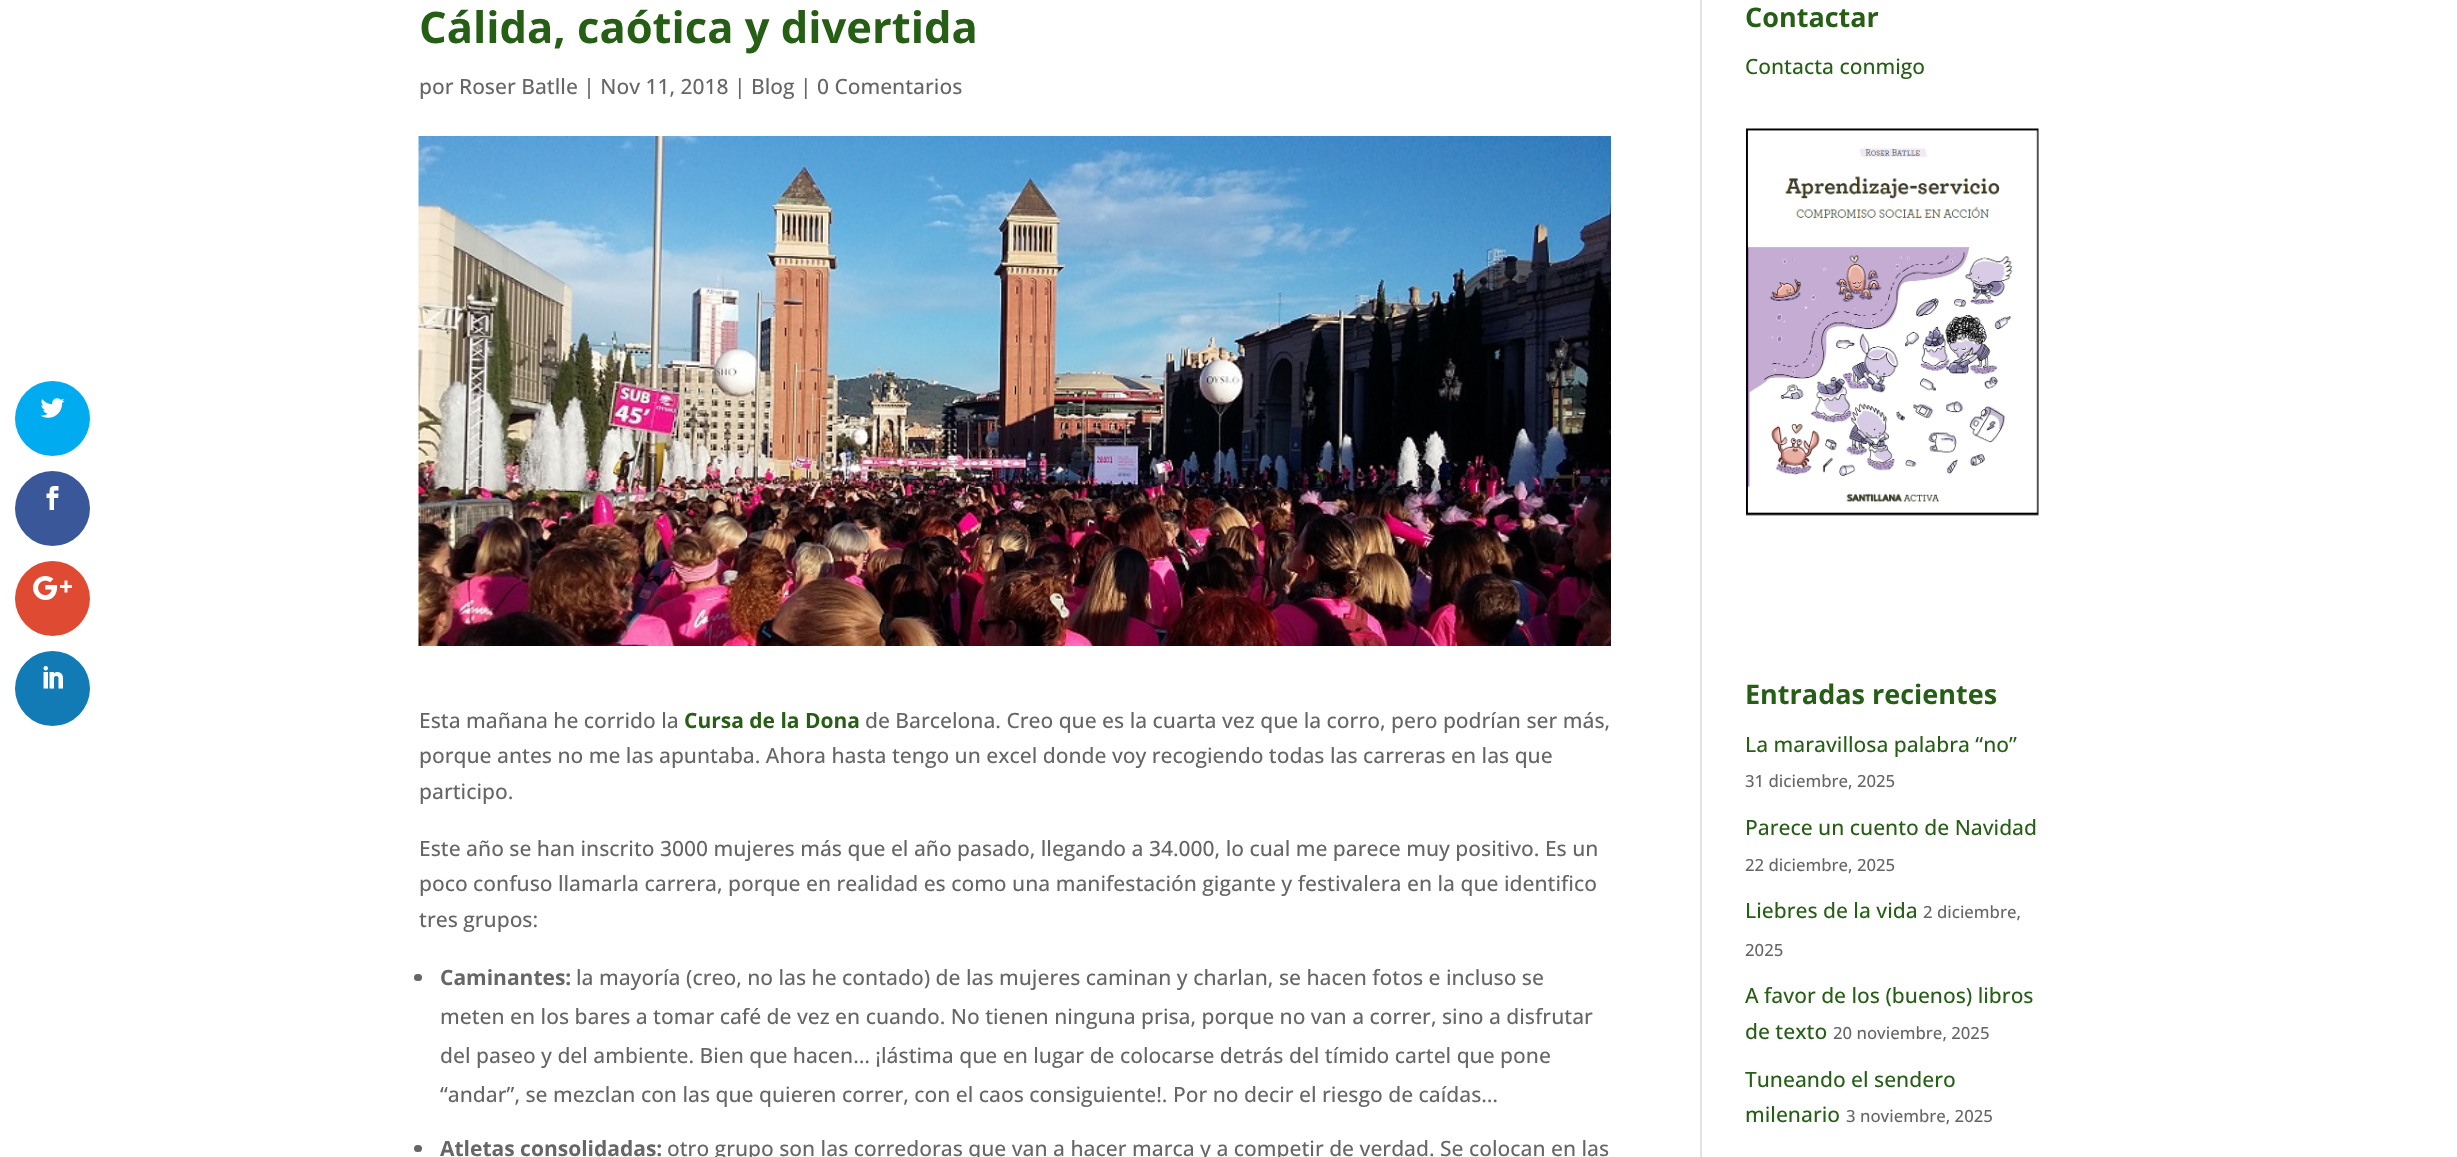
<?xml version="1.0" encoding="UTF-8"?>
<svg xmlns="http://www.w3.org/2000/svg" width="2457" height="1157">
    <rect width="100%" height="100%" fill="#FFFFFF"/>
    <circle cx="52.5" cy="418.5" r="37.5" fill="#00ABF0"/>
    <image x="40" y="398" width="25" height="20" href="img_01.png"/>
    <circle cx="52.5" cy="508.5" r="37.5" fill="#3A579A"/>
    <image x="46" y="486" width="13" height="24" href="img_02.png"/>
    <circle cx="52.5" cy="598.5" r="37.5" fill="#DF4A32"/>
    <image x="33" y="576" width="39" height="24" href="img_03.png"/>
    <circle cx="52.5" cy="688.5" r="37.5" fill="#127BB6"/>
    <image x="43" y="666" width="20" height="23" href="img_04.png"/>
    <rect x="1700" y="0" width="2" height="1157" fill="#E2E2E2"/>
    <text x="419" y="43" font-family="Open Sans" font-size="43.5" font-weight="700" fill="#265E15">Cálida, caótica y divertida</text>
    <text x="419" y="94" font-family="Open Sans" font-size="21" font-weight="500" fill="#666666">por Roser Batlle | Nov 11, 2018 | Blog | 0 Comentarios</text>
    <image x="418" y="136" width="1193" height="510" href="img_05.png"/>
    <text x="419" y="728" font-family="Open Sans" font-size="21" font-weight="500" fill="#666666">Esta mañana he corrido la</text>
    <text x="684" y="728" font-family="Open Sans" font-size="21" font-weight="700" fill="#265E15">Cursa de la Dona</text>
    <text x="865" y="728" font-family="Open Sans" font-size="21" font-weight="500" fill="#666666">de Barcelona. Creo que es la cuarta vez que la corro, pero podrían ser más,</text>
    <text font-family="Open Sans" font-size="21" font-weight="500" fill="#666666">
        <tspan x="419" y="763">porque antes no me las apuntaba. Ahora hasta tengo un excel donde voy recogiendo todas las carreras en las que</tspan>
        <tspan x="419" y="799">participo.</tspan>
    </text>
    <text font-family="Open Sans" font-size="21" font-weight="500" fill="#666666">
        <tspan x="419" y="856">Este año se han inscrito 3000 mujeres más que el año pasado, llegando a 34.000, lo cual me parece muy positivo. Es un</tspan>
        <tspan x="419" y="891">poco confuso llamarla carrera, porque en realidad es como una manifestación gigante y festivalera en la que identifico</tspan>
        <tspan x="419" y="927">tres grupos:</tspan>
    </text>
    <rect x="414" y="974" width="8" height="7" rx="3.5" fill="#666666"/>
    <text x="440" y="985" font-family="Open Sans" font-size="21" font-weight="700" fill="#666666">Caminantes:</text>
    <text x="576" y="985" font-family="Open Sans" font-size="21" font-weight="500" fill="#666666">la mayoría (creo, no las he contado) de las mujeres caminan y charlan, se hacen fotos e incluso se</text>
    <text font-family="Open Sans" font-size="21" font-weight="500" fill="#666666">
        <tspan x="440" y="1024">meten en los bares a tomar café de vez en cuando. No tienen ninguna prisa, porque no van a correr, sino a disfrutar</tspan>
        <tspan x="440" y="1063">del paseo y del ambiente. Bien que hacen… ¡lástima que en lugar de colocarse detrás del tímido cartel que pone</tspan>
        <tspan x="440" y="1102">“andar”, se mezclan con las que quieren correr, con el caos consiguiente!. Por no decir el riesgo de caídas…</tspan>
    </text>
    <rect x="414" y="1145" width="8" height="7" rx="3.5" fill="#666666"/>
    <text x="440" y="1156" font-family="Open Sans" font-size="21" font-weight="700" fill="#666666">Atletas consolidadas:</text>
    <text x="667" y="1156" font-family="Open Sans" font-size="21" font-weight="500" fill="#666666">otro grupo son las corredoras que van a hacer marca y a competir de verdad. Se colocan en las</text>
    <text x="1745" y="27" font-family="Open Sans" font-size="27" font-weight="700" fill="#265E15">Contactar</text>
    <text x="1745" y="74" font-family="Open Sans" font-size="21" font-weight="500" fill="#265E15">Contacta conmigo</text>
    <image x="1746" y="128" width="293" height="388" href="img_06.png"/>
    <text x="1745" y="704" font-family="Open Sans" font-size="27" font-weight="700" fill="#265E15">Entradas recientes</text>
    <text x="1745" y="752" font-family="Open Sans" font-size="21" font-weight="500" fill="#265E15">La maravillosa palabra “no”</text>
    <text x="1745" y="787" font-family="Open Sans" font-size="16.75" font-weight="500" fill="#666666">31 diciembre, 2025</text>
    <text x="1745" y="835" font-family="Open Sans" font-size="21" font-weight="500" fill="#265E15">Parece un cuento de Navidad</text>
    <text x="1745" y="871" font-family="Open Sans" font-size="16.75" font-weight="500" fill="#666666">22 diciembre, 2025</text>
    <text x="1745" y="918" font-family="Open Sans" font-size="21" font-weight="500" fill="#265E15">Liebres de la vida</text>
    <text x="1923" y="918" font-family="Open Sans" font-size="16.75" font-weight="500" fill="#666666">2 diciembre,</text>
    <text x="1745" y="956" font-family="Open Sans" font-size="16.75" font-weight="500" fill="#666666">2025</text>
    <text font-family="Open Sans" font-size="21" font-weight="500" fill="#265E15">
        <tspan x="1745" y="1003">A favor de los (buenos) libros</tspan>
        <tspan x="1745" y="1039">de texto</tspan>
    </text>
    <text x="1833" y="1039" font-family="Open Sans" font-size="16.75" font-weight="500" fill="#666666">20 noviembre, 2025</text>
    <text font-family="Open Sans" font-size="21" font-weight="500" fill="#265E15">
        <tspan x="1745" y="1087">Tuneando el sendero</tspan>
        <tspan x="1745" y="1122">milenario</tspan>
    </text>
    <text x="1846" y="1122" font-family="Open Sans" font-size="16.75" font-weight="500" fill="#666666">3 noviembre, 2025</text>
</svg>
